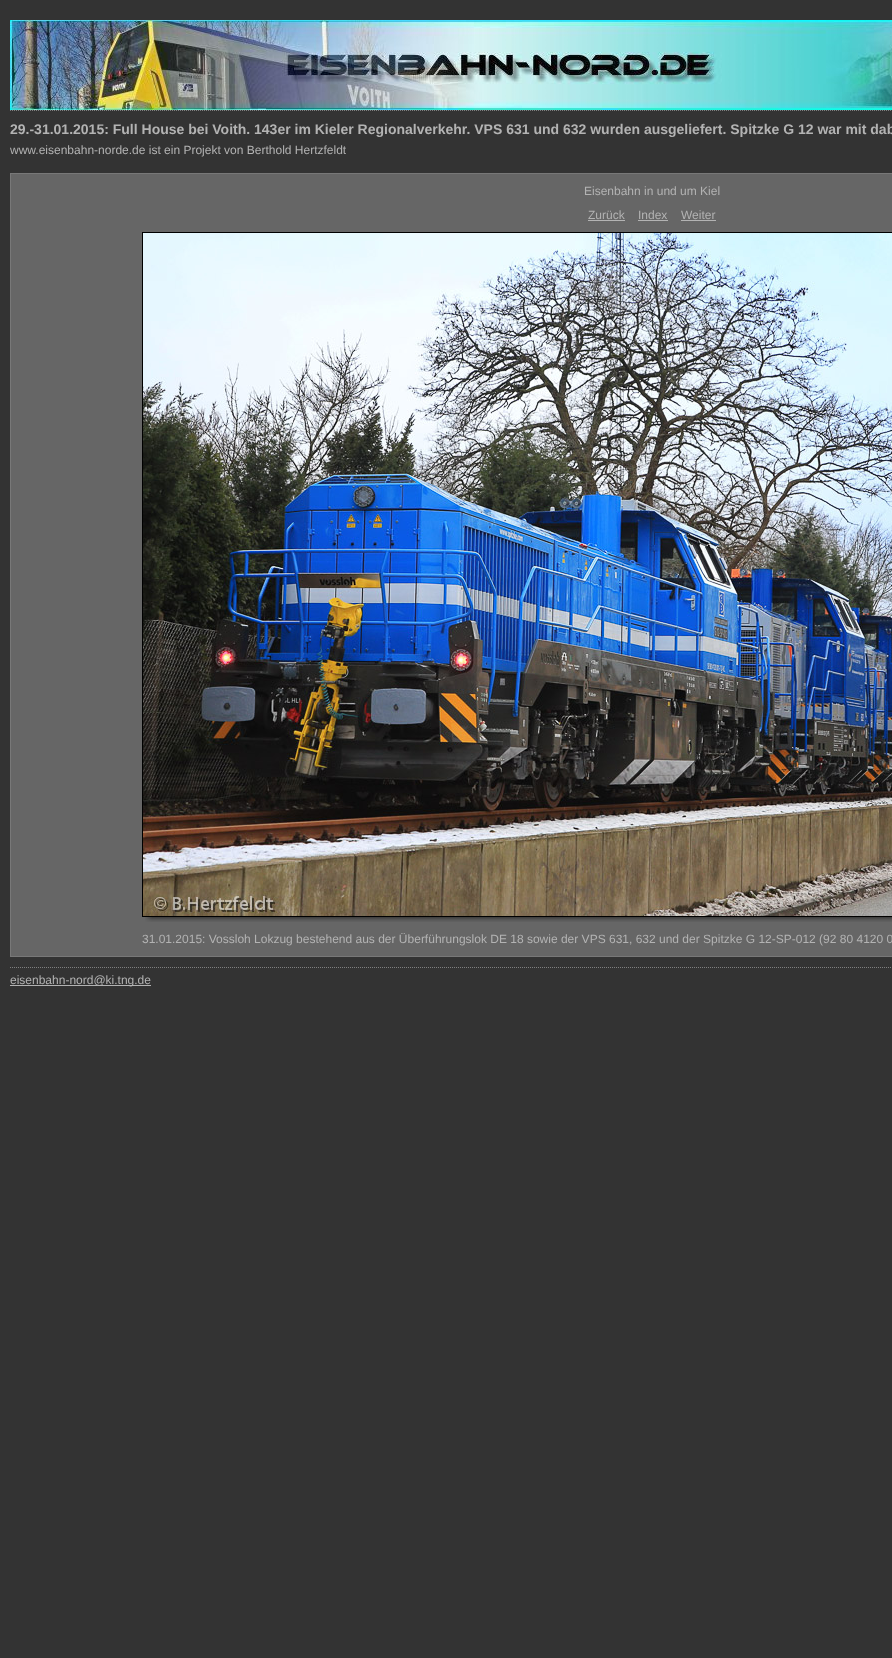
<?xml version="1.0" encoding="UTF-8"?>
<svg xmlns="http://www.w3.org/2000/svg" width="892" height="1658">
    <rect width="100%" height="100%" fill="#333333"/>
    <image x="10" y="20" width="882" height="90" href="img_01.png"/>
    <path d="M 10 110.5 H 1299" fill="none" stroke="#7F7F7F" stroke-dasharray="1 1"/>
    <text x="10" y="134" font-family="Liberation Sans" font-size="14" font-weight="700" fill="#B3B3B3">29.-31.01.2015: Full House bei Voith. 143er im Kieler Regionalverkehr. VPS 631 und 632 wurden ausgeliefert. Spitzke G 12 war mit dab</text>
    <text x="10" y="154" font-family="Liberation Sans" font-size="12" fill="#B3B3B3">www.eisenbahn-norde.de ist ein Projekt von Berthold Hertzfeldt</text>
    <path d="M 10 967.5 H 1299" fill="none" stroke="#7F7F7F" stroke-dasharray="1 1"/>
    <rect x="10.5" y="173.5" width="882" height="783" fill="#666666" stroke="#787878"/>
    <text x="584" y="195" font-family="Liberation Sans" font-size="12" fill="#B3B3B3">Eisenbahn in und um Kiel</text>
    <text x="588" y="219" font-family="Liberation Sans" font-size="12" fill="#B3B3B3">Zurück</text>
    <rect x="588" y="220" width="37" height="1" fill="#B3B3B3"/>
    <text x="638" y="219" font-family="Liberation Sans" font-size="12" fill="#B3B3B3">Index</text>
    <rect x="638" y="220" width="30" height="1" fill="#B3B3B3"/>
    <text x="681" y="219" font-family="Liberation Sans" font-size="12" fill="#B3B3B3">Weiter</text>
    <rect x="681" y="220" width="35" height="1" fill="#B3B3B3"/>
    <image x="152" y="917" width="740" height="5" href="img_02.png"/>
    <rect x="142.5" y="232.5" width="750" height="684" fill="none" stroke="#000000"/>
    <image x="143" y="233" width="749" height="683" href="img_03.png"/>
    <image x="145" y="917" width="7" height="5" href="img_04.png"/>
    <text x="142" y="943" font-family="Liberation Sans" font-size="12" fill="#B3B3B3">31.01.2015: Vossloh Lokzug bestehend aus der Überführungslok DE 18 sowie der VPS 631, 632 und der Spitzke G 12-SP-012 (92 80 4120 0</text>
    <rect x="10" y="985" width="141" height="1" fill="#B3B3B3"/>
    <text x="10" y="984" font-family="Liberation Sans" font-size="12" fill="#B3B3B3">eisenbahn-nord@ki.tng.de</text>
</svg>
